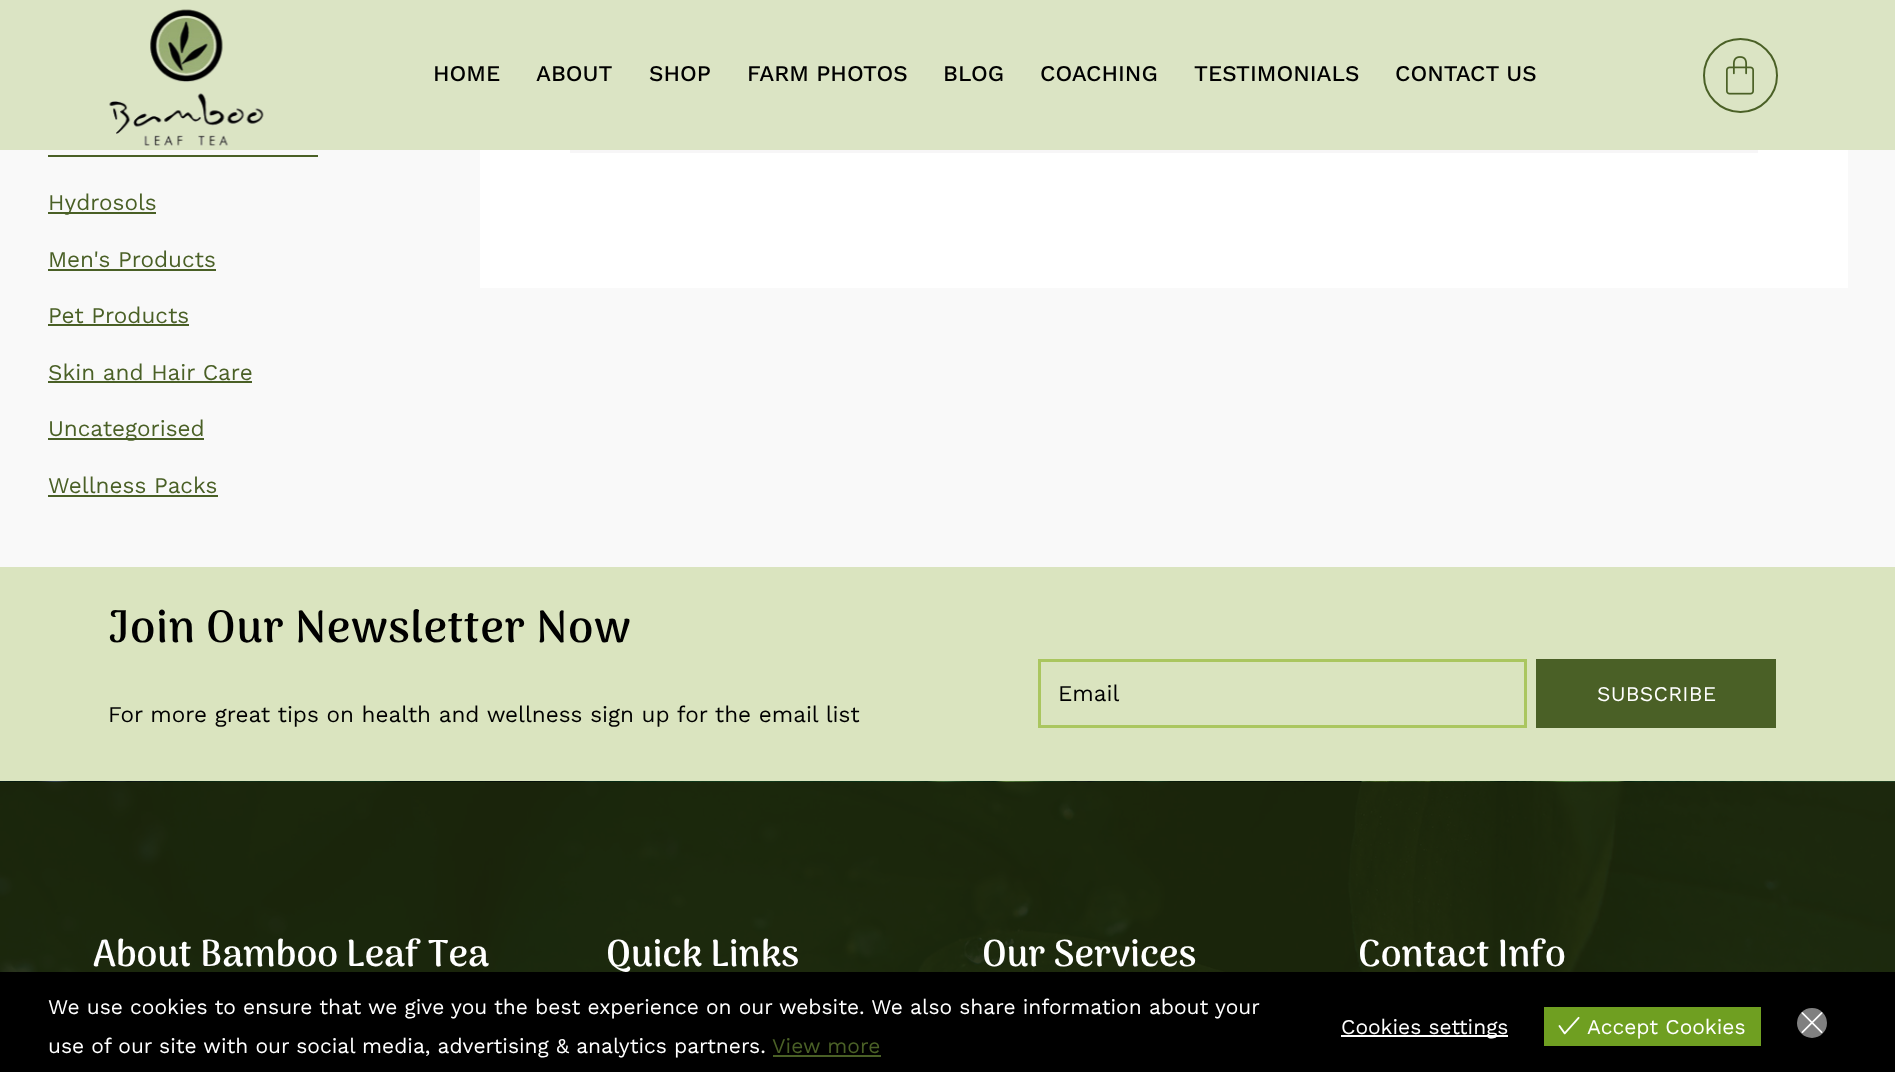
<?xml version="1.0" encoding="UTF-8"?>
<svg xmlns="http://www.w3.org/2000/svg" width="1895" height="1072">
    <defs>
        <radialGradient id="g1" gradientUnits="userSpaceOnUse" cx="0" cy="0" r="1" gradientTransform="matrix(1341 0 0 212 948 150)"><stop offset="0" stop-color="#FFFFFF"/><stop offset="0" stop-color="#DBE4C4"/></radialGradient>
    </defs>
    <rect width="100%" height="100%" fill="#F9F9F9"/>
    <rect x="0" y="0" width="1895" height="150" fill="url(#g1)"/>
    <image x="109" y="9" width="155" height="137" href="img_01.png"/>
    <text x="433" y="81" font-family="Work Sans" font-size="22.5" font-weight="500" fill="#000000">HOME</text>
    <text x="536" y="81" font-family="Work Sans" font-size="22.5" font-weight="500" fill="#000000">ABOUT</text>
    <text x="649" y="81" font-family="Work Sans" font-size="22.5" font-weight="500" fill="#000000">SHOP</text>
    <text x="747" y="81" font-family="Work Sans" font-size="22.5" font-weight="500" fill="#000000">FARM PHOTOS</text>
    <text x="943" y="81" font-family="Work Sans" font-size="22.5" font-weight="500" fill="#000000">BLOG</text>
    <text x="1040" y="81" font-family="Work Sans" font-size="22.5" font-weight="500" fill="#000000">COACHING</text>
    <text x="1194" y="81" font-family="Work Sans" font-size="22.5" font-weight="500" fill="#000000">TESTIMONIALS</text>
    <text x="1395" y="81" font-family="Work Sans" font-size="22.5" font-weight="500" fill="#000000">CONTACT US</text>
    <circle cx="1740.5" cy="75.5" r="36.5" fill="none" stroke="#4A6026" stroke-width="2"/>
    <image x="1726" y="56" width="28" height="39" href="img_02.png"/>
    <rect x="48" y="155" width="270" height="2" fill="#4A6026"/>
    <rect x="48" y="212" width="108" height="2" fill="#4A6026"/>
    <text x="48" y="210" font-family="Work Sans" font-size="22.5" fill="#4A6026">Hydrosols</text>
    <text x="48" y="267" font-family="Work Sans" font-size="22.5" fill="#4A6026">Men's Products</text>
    <rect x="48" y="269" width="168" height="2" fill="#4A6026"/>
    <text x="48" y="323" font-family="Work Sans" font-size="22.5" fill="#4A6026">Pet Products</text>
    <rect x="48" y="324" width="141" height="2" fill="#4A6026"/>
    <text x="48" y="380" font-family="Work Sans" font-size="22.5" fill="#4A6026">Skin and Hair Care</text>
    <rect x="48" y="381" width="204" height="2" fill="#4A6026"/>
    <rect x="48" y="438" width="156" height="2" fill="#4A6026"/>
    <text x="48" y="436" font-family="Work Sans" font-size="22.5" fill="#4A6026">Uncategorised</text>
    <text x="48" y="493" font-family="Work Sans" font-size="22.5" fill="#4A6026">Wellness Packs</text>
    <rect x="48" y="495" width="170" height="2" fill="#4A6026"/>
    <rect x="480" y="150" width="1368" height="138" fill="#FFFFFF"/>
    <rect x="570" y="150" width="1188" height="3" fill="#F7F6F7"/>
    <rect x="0" y="567" width="1895" height="214" fill="#DAE4BF"/>
    <text x="108" y="642" font-family="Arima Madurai" font-size="45" font-weight="700" letter-spacing="0.75" fill="#000000">Join Our Newsletter Now</text>
    <text x="108" y="722" font-family="Work Sans" font-size="22.5" fill="#000000">For more great tips on health and wellness sign up for the email list</text>
    <rect x="1039.5" y="660.5" width="486" height="66" fill="none" stroke="#AAC65F" stroke-width="3"/>
    <text x="1058" y="701" font-family="Work Sans" font-size="22.5" fill="#000000">Email</text>
    <rect x="1536" y="659" width="240" height="69" fill="#4A6026"/>
    <text x="1597" y="701" font-family="Work Sans" font-size="21" letter-spacing="0.25" fill="#FFFFFF">SUBSCRIBE</text>
    <image x="0" y="781" width="1895" height="191" href="img_03.png"/>
    <text x="93" y="966" font-family="Arima Madurai" font-size="37.5" font-weight="700" fill="#FFFFFF">About Bamboo Leaf Tea</text>
    <text x="606" y="966" font-family="Arima Madurai" font-size="37.5" font-weight="700" fill="#FFFFFF">Quick Links</text>
    <text x="982" y="966" font-family="Arima Madurai" font-size="37.5" font-weight="700" fill="#FFFFFF">Our Services</text>
    <text x="1358" y="966" font-family="Arima Madurai" font-size="37.5" font-weight="700" fill="#FFFFFF">Contact Info</text>
    <rect x="0" y="972" width="1895" height="100" fill="#000000"/>
    <text font-family="Work Sans" font-size="21" fill="#FFFFFF">
        <tspan x="48" y="1014">We use cookies to ensure that we give you the best experience on our website. We also share information about your</tspan>
        <tspan x="48" y="1053">use of our site with our social media, advertising &amp; analytics partners.</tspan>
    </text>
    <text x="772" y="1053" font-family="Work Sans" font-size="21" fill="#4A6026">View more</text>
    <rect x="773" y="1055" width="108" height="2" fill="#4A6026"/>
    <rect x="1341" y="1035" width="167" height="2" fill="#FFFFFF"/>
    <text x="1341" y="1034" font-family="Work Sans" font-size="21" fill="#FFFFFF">Cookies settings</text>
    <rect x="1544" y="1007" width="217" height="39" fill="#6F9F21"/>
    <image x="1558" y="1016" width="22" height="19" href="img_04.png"/>
    <text x="1587" y="1034" font-family="Work Sans" font-size="21" fill="#FFFFFF">Accept Cookies</text>
    <circle cx="1812" cy="1023" r="15" fill="#808080"/>
    <image x="1801" y="1012" width="22" height="22" href="img_05.png"/>
</svg>
